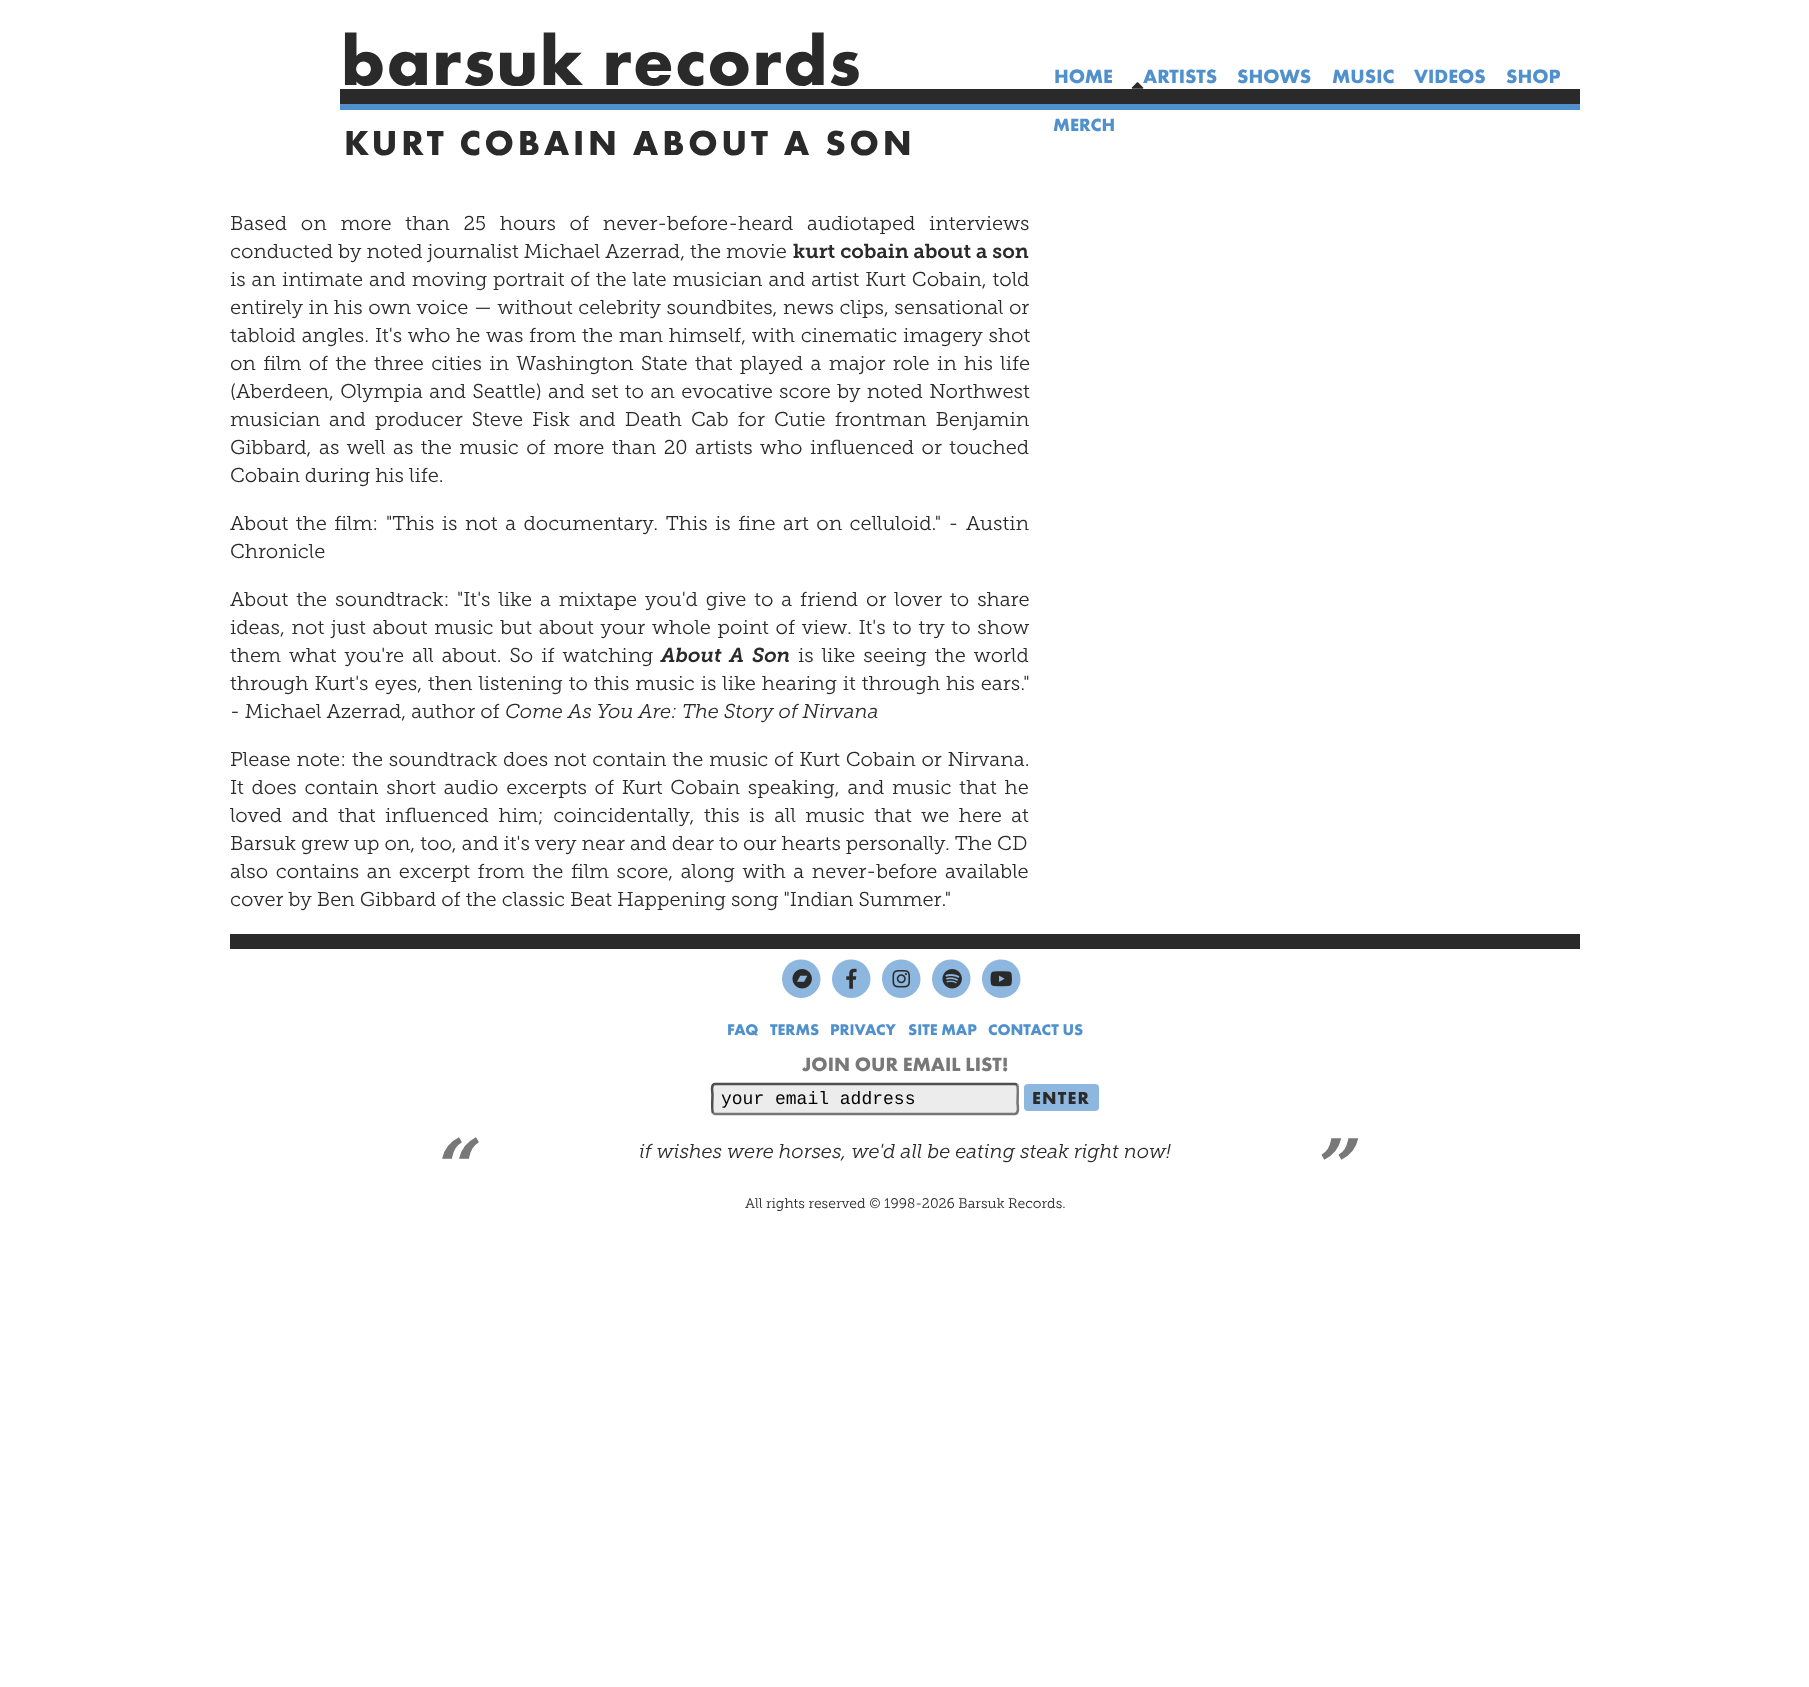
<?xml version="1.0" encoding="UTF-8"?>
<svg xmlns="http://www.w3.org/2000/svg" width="1809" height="1687">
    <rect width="100%" height="100%" fill="#FFFFFF"/>
    <rect x="340" y="89" width="1240" height="15" fill="#2A2A2A"/>
    <text x="341" y="85" font-family="Futura PT" font-size="72" font-weight="700" letter-spacing="1.25" fill="#2A2A2A">barsuk records</text>
    <text x="1054" y="83" font-family="Futura PT" font-size="20" font-weight="700" fill="#5091CD">HOME</text>
    <text x="1143" y="83" font-family="Futura PT" font-size="20" font-weight="700" fill="#5091CD">ARTISTS</text>
    <image x="1131" y="82" width="13" height="7" href="img_01.png"/>
    <text x="1237" y="83" font-family="Futura PT" font-size="20" font-weight="700" fill="#5091CD">SHOWS</text>
    <text x="1332" y="83" font-family="Futura PT" font-size="20" font-weight="700" fill="#5091CD">MUSIC</text>
    <text x="1414" y="83" font-family="Futura PT" font-size="20" font-weight="700" fill="#5091CD">VIDEOS</text>
    <text x="1506" y="83" font-family="Futura PT" font-size="20" font-weight="700" fill="#5091CD">SHOP</text>
    <rect x="340" y="104" width="1240" height="6" fill="#5091CD"/>
    <text x="1053" y="131" font-family="Futura PT" font-size="18.5" font-weight="700" fill="#5091CD">MERCH</text>
    <text x="344" y="155" font-family="Futura PT" font-size="36" font-weight="700" letter-spacing="3.75" fill="#2A2A2A">KURT COBAIN ABOUT A SON</text>
    <text font-family="'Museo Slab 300'" font-size="20" font-weight="300" fill="#2A2A2A">
        <tspan x="230" y="230" word-spacing="8.75">Based on more than 25 hours of never-before-heard audiotaped interviews</tspan>
        <tspan x="230" y="258">conducted by noted journalist Michael Azerrad, the movie</tspan>
    </text>
    <text x="793" y="258" font-family="'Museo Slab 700'" font-size="20" font-weight="600" fill="#2A2A2A">kurt cobain about a son</text>
    <text font-family="'Museo Slab 300'" font-size="20" font-weight="300" fill="#2A2A2A">
        <tspan x="230" y="286" word-spacing="0.9">is an intimate and moving portrait of the late musician and artist Kurt Cobain, told</tspan>
        <tspan x="230" y="314" word-spacing="0.5">entirely in his own voice — without celebrity soundbites, news clips, sensational or</tspan>
        <tspan x="230" y="342" word-spacing="0.75">tabloid angles.</tspan>
    </text>
    <text x="375" y="342" word-spacing="0.75" font-family="'Museo Slab 300'" font-size="20" font-weight="300" fill="#2A2A2A">It's who he was from the man himself, with cinematic imagery shot</text>
    <text font-family="'Museo Slab 300'" font-size="20" font-weight="300" fill="#2A2A2A">
        <tspan x="230" y="370" word-spacing="2.4">on film of the three cities in Washington State that played a major role in his life</tspan>
        <tspan x="230" y="398" word-spacing="1.4">(Aberdeen, Olympia and Seattle) and set to an evocative score by noted Northwest</tspan>
        <tspan x="230" y="426" word-spacing="4">musician and producer Steve Fisk and Death Cab for Cutie frontman Benjamin</tspan>
        <tspan x="230" y="454" word-spacing="2.5">Gibbard, as well as the music of more than 20 artists who influenced or touched</tspan>
        <tspan x="230" y="482">Cobain during his life.</tspan>
    </text>
    <text x="230" y="530" word-spacing="2.5" font-family="'Museo Slab 300'" font-size="20" font-weight="300" fill="#2A2A2A">About the film:</text>
    <text x="386" y="530" word-spacing="2.5" font-family="'Museo Slab 300'" font-size="20" font-weight="300" fill="#2A2A2A">"This is not a documentary. This is fine art on celluloid." - Austin</text>
    <text x="230" y="558" font-family="'Museo Slab 300'" font-size="20" font-weight="300" fill="#2A2A2A">Chronicle</text>
    <text x="230" y="606" word-spacing="2.9" font-family="'Museo Slab 300'" font-size="20" font-weight="300" fill="#2A2A2A">About the soundtrack:</text>
    <text x="457" y="606" word-spacing="2.9" font-family="'Museo Slab 300'" font-size="20" font-weight="300" fill="#2A2A2A">"It's like a mixtape you'd give to a friend or lover to share</text>
    <text font-family="'Museo Slab 300'" font-size="20" font-weight="300" fill="#2A2A2A">
        <tspan x="230" y="634" word-spacing="1.75">ideas, not just about music but about your whole point of view. It's to try to show</tspan>
        <tspan x="230" y="662" word-spacing="3">them what you're all about. So if watching</tspan>
    </text>
    <text x="661" y="662" word-spacing="3" font-family="'Museo Slab 700'" font-size="20" font-weight="600" font-style="italic" fill="#2A2A2A">About A Son</text>
    <text x="798" y="662" word-spacing="3" font-family="'Museo Slab 300'" font-size="20" font-weight="300" fill="#2A2A2A">is like seeing the world</text>
    <text font-family="'Museo Slab 300'" font-size="20" font-weight="300" fill="#2A2A2A">
        <tspan x="230" y="690" word-spacing="0.9">through Kurt's eyes, then listening to this music is like hearing it through his ears."</tspan>
        <tspan x="230" y="718">- Michael Azerrad, author of</tspan>
    </text>
    <text x="505" y="718" font-family="'Museo Slab 300'" font-size="20" font-weight="300" font-style="italic" fill="#2A2A2A">Come As You Are: The Story of Nirvana</text>
    <text x="230" y="766" word-spacing="0.75" font-family="'Museo Slab 300'" font-size="20" font-weight="300" fill="#2A2A2A">Please note:</text>
    <text x="352" y="766" word-spacing="0.75" font-family="'Museo Slab 300'" font-size="20" font-weight="300" fill="#2A2A2A">the soundtrack does not contain the music of Kurt Cobain or Nirvana.</text>
    <text font-family="'Museo Slab 300'" font-size="20" font-weight="300" fill="#2A2A2A">
        <tspan x="230" y="794" word-spacing="2.75">It does contain short audio excerpts of Kurt Cobain speaking, and music that he</tspan>
        <tspan x="230" y="822" word-spacing="4.5">loved and that influenced him; coincidentally, this is all music that we here at</tspan>
        <tspan x="230" y="850">Barsuk grew up on, too, and it's very near and dear to our hearts personally. The CD</tspan>
        <tspan x="230" y="878" word-spacing="2.6">also contains an excerpt from the film score, along with a never-before available</tspan>
        <tspan x="230" y="906">cover by Ben Gibbard of the classic Beat Happening song "Indian Summer."</tspan>
    </text>
    <rect x="230" y="934" width="1350" height="15" fill="#2A2A2A"/>
    <path d="M 801 959.5 C 783 959.5 775 983 789.5 994 C 793 996.5 797 998 801 998 C 805.5 998 809.5 996.5 813 994 C 827.5 983 819.5 959.5 801 959.5 Z" fill="#8DB7DE"/>
    <image x="792" y="969" width="20" height="20" href="img_02.png"/>
    <path d="M 851 959.5 C 833 959.5 825 983 839.5 994 C 843 996.5 847 998 851 998 C 855.5 998 859.5 996.5 863 994 C 877.5 983 869.5 959.5 851 959.5 Z" fill="#8DB7DE"/>
    <image x="846" y="968" width="11" height="21" href="img_03.png"/>
    <path d="M 901 959.5 C 897 959.5 893 961 889.5 963.5 C 875 974.5 883 998 901 998 C 905.5 998 909.5 996.5 913 994 C 927.5 983 919.5 959.5 901 959.5 Z" fill="#8DB7DE"/>
    <image x="892" y="970" width="18" height="18" href="img_04.png"/>
    <path d="M 951 959.5 C 933 959.5 925 983 939.5 994 C 943 996.5 947 998 951 998 C 969.5 998 977.5 974.5 963 963.5 C 959.5 961 955.5 959.5 951 959.5 Z" fill="#8DB7DE"/>
    <image x="942" y="969" width="20" height="20" href="img_05.png"/>
    <path d="M 1001 959.5 C 983 959.5 975 983 989.5 994 C 993 996.5 997 998 1001 998 C 1005.5 998 1009.5 996.5 1013 994 C 1027.5 983 1019.5 959.5 1001 959.5 Z" fill="#8DB7DE"/>
    <image x="990" y="971" width="22" height="16" href="img_06.png"/>
    <text x="727" y="1035" font-family="Futura PT" font-size="16" font-weight="700" fill="#5091CD">FAQ</text>
    <text x="770" y="1035" font-family="Futura PT" font-size="16" font-weight="700" fill="#5091CD">TERMS</text>
    <text x="830" y="1035" font-family="Futura PT" font-size="16" font-weight="700" fill="#5091CD">PRIVACY</text>
    <text x="908" y="1035" font-family="Futura PT" font-size="16" font-weight="700" fill="#5091CD">SITE MAP</text>
    <text x="988" y="1035" font-family="Futura PT" font-size="16" font-weight="700" fill="#5091CD">CONTACT US</text>
    <text x="802" y="1071" font-family="Futura PT" font-size="20" font-weight="700" fill="#787878">JOIN OUR EMAIL LIST!</text>
    <rect x="711" y="1083" width="308" height="32" rx="4" fill="#ECECEC"/>
    <path d="M 1017 1084.5 C 1018.5 1086.5 1017.5 1100 1017.5 1103 C 1017.5 1104.5 1019.5 1113.5 1015 1114 H 715 L 713 1113" fill="none" stroke="#767676" stroke-width="2.5"/>
    <path d="M 713 1113 C 711.5 1111 712.5 1097.5 712.5 1094.5 C 712.5 1093 710.5 1084 715 1084 H 1015 L 1017 1084.5" fill="none" stroke="#4F4F4F" stroke-width="2.5"/>
    <text x="721" y="1104" font-family="Liberation Mono" font-size="18" fill="#000000">your email address</text>
    <rect x="1024" y="1084" width="75" height="27" rx="4" fill="#8DB7DE"/>
    <text x="1032" y="1104" font-family="Futura PT" font-size="18" font-weight="700" letter-spacing="1.25" fill="#2A2A2A">ENTER</text>
    <text x="439" y="1193" font-family="DejaVu Serif" font-size="75" font-weight="700" font-style="italic" fill="#787878">“</text>
    <text x="639" y="1158" font-family="'Museo Slab 300'" font-size="20" font-weight="300" font-style="italic" fill="#2A2A2A">if wishes were horses, we'd all be eating steak right now!</text>
    <text x="1319" y="1193" font-family="DejaVu Serif" font-size="75" font-weight="700" font-style="italic" fill="#787878">”</text>
    <text x="745" y="1208" font-family="'Museo Slab 300'" font-size="14" font-weight="300" fill="#2A2A2A">All rights reserved © 1998-2026 Barsuk Records.</text>
</svg>
